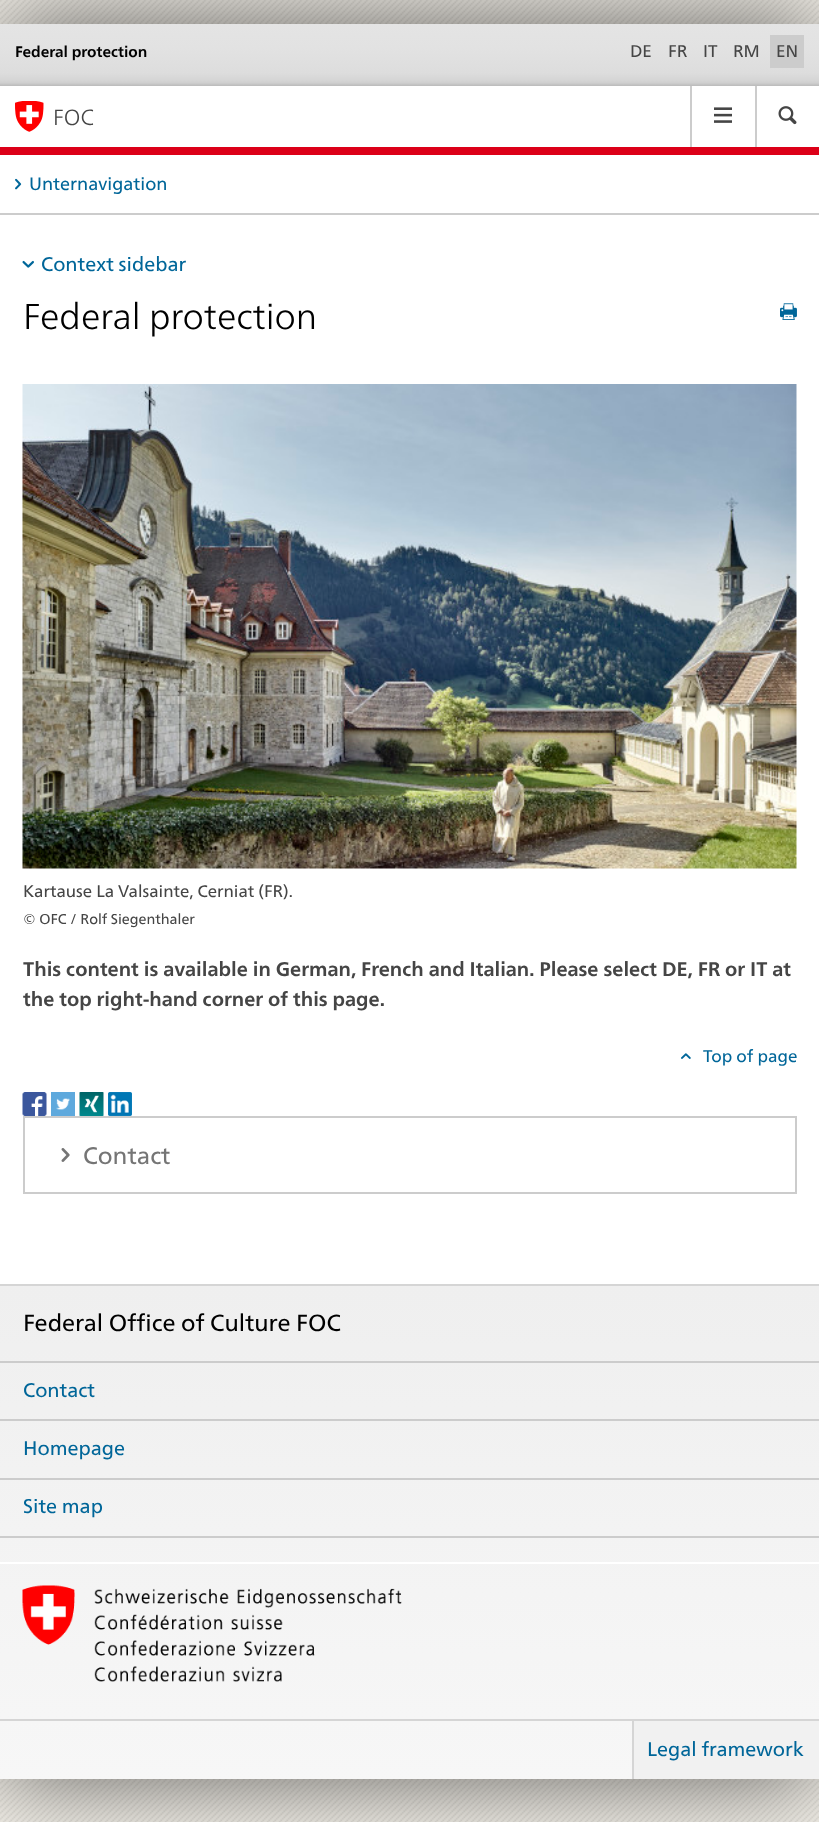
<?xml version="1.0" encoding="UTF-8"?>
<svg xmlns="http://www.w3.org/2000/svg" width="819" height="1822">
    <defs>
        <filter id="blur1" x="-50%" y="-200%" width="200%" height="500%"><feGaussianBlur stdDeviation="45"/></filter>
        <linearGradient id="g1" gradientUnits="userSpaceOnUse" x1="410" y1="24" x2="410" y2="86"><stop offset="0" stop-color="#E4E4E4"/><stop offset="0.39" stop-color="#E2E2E2"/><stop offset="0.79" stop-color="#DDDDDD"/><stop offset="0.91" stop-color="#D5D5D5"/><stop offset="0.95" stop-color="#CFCFCF"/><stop offset="0.99" stop-color="#BEBEBE"/></linearGradient>
        <linearGradient id="g2" gradientUnits="userSpaceOnUse" x1="410" y1="1286" x2="410" y2="1779"><stop offset="0" stop-color="#EFEFEF"/><stop offset="1" stop-color="#F7F7F7"/></linearGradient>
    </defs>
    <rect width="100%" height="100%" fill="#FFFFFF"/>
    <image x="0" y="0" width="819" height="1822" href="img_01.png"/>
    <rect x="0" y="24" width="819" height="1755" fill="#000000" fill-opacity="0.6" filter="url(#blur1)"/>
    <rect x="0" y="86" width="819" height="1198" fill="#FFFFFF"/>
    <rect x="0" y="24" width="819" height="62" fill="url(#g1)"/>
    <text x="15" y="57" font-family="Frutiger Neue" font-size="15.25" font-weight="700" fill="#000000">Federal protection</text>
    <text x="630" y="57" font-family="'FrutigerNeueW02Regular'" font-size="17" fill="#454545">DE</text>
    <text x="668" y="57" font-family="'FrutigerNeueW02Regular'" font-size="17" fill="#454545">FR</text>
    <text x="703" y="57" font-family="'FrutigerNeueW02Regular'" font-size="17" fill="#454545">IT</text>
    <text x="733" y="57" font-family="'FrutigerNeueW02Regular'" font-size="17" fill="#454545">RM</text>
    <rect x="770" y="35" width="34" height="33" fill="#CCCCCC"/>
    <text x="776" y="57" font-family="'FrutigerNeueW02Regular'" font-size="17" fill="#454545">EN</text>
    <rect x="0" y="147" width="819" height="8" fill="#DC0018"/>
    <image x="15" y="101" width="29" height="31" href="img_02.png"/>
    <text x="53" y="125" font-family="Frutiger Neue" font-size="22" font-weight="300" fill="#454545">FOC</text>
    <rect x="690" y="86" width="2" height="61" fill="#CCCCCC"/>
    <image x="714" y="107" width="18" height="16" href="img_03.png"/>
    <rect x="755" y="86" width="2" height="61" fill="#CCCCCC"/>
    <image x="778" y="106" width="19" height="19" href="img_04.png"/>
    <rect x="0" y="213" width="819" height="2" fill="#CCCCCC"/>
    <image x="15" y="178" width="7" height="12" href="img_05.png"/>
    <text x="29" y="190" font-family="'FrutigerNeueW02Regular'" font-size="18" fill="#006699">Unternavigation</text>
    <image x="22" y="260" width="12" height="8" href="img_06.png"/>
    <text x="41" y="271" font-family="'FrutigerNeueW02Regular'" font-size="19.8" fill="#006699">Context sidebar</text>
    <text x="23" y="329" font-family="Frutiger Neue" font-size="36" font-weight="300" fill="#000000">Federal protection</text>
    <image x="780" y="303" width="17" height="17" href="img_07.png"/>
    <image x="22" y="384" width="775" height="485" href="img_08.png"/>
    <text x="23" y="897" font-family="'FrutigerNeueW02Regular'" font-size="16.75" fill="#454545">Kartause La Valsainte, Cerniat (FR).</text>
    <text x="23" y="924" font-family="'FrutigerNeueW02Regular'" font-size="14.25" fill="#454545">© OFC / Rolf Siegenthaler</text>
    <text font-family="Frutiger Neue" font-size="19.8" font-weight="700" fill="#454545">
        <tspan x="23" y="976">This content is available in German, French and Italian. Please select DE, FR or IT at</tspan>
        <tspan x="23" y="1006">the top right-hand corner of this page.</tspan>
    </text>
    <image x="681" y="1053" width="10" height="6" href="img_09.png"/>
    <text x="703" y="1062" font-family="'FrutigerNeueW02Regular'" font-size="17" fill="#006699">Top of page</text>
    <image x="22" y="1092" width="25" height="24" href="img_10.png"/>
    <image x="51" y="1092" width="24" height="24" href="img_11.png"/>
    <image x="79" y="1092" width="25" height="24" href="img_12.png"/>
    <image x="108" y="1092" width="24" height="24" href="img_13.png"/>
    <rect x="24" y="1117" width="772" height="76" fill="none" stroke="#CCCCCC" stroke-width="2"/>
    <image x="61" y="1148" width="9" height="14" href="img_14.png"/>
    <text x="83" y="1164" font-family="'FrutigerNeueW02Regular'" font-size="24" fill="#757575">Contact</text>
    <rect x="0" y="1286" width="819" height="493" fill="url(#g2)"/>
    <rect x="0" y="1284" width="819" height="2" fill="#D5D5D5"/>
    <text x="23" y="1331" font-family="'FrutigerNeueW02Regular'" font-size="23.4" fill="#000000">Federal Office of Culture FOC</text>
    <rect x="0" y="1536" width="819" height="2" fill="#CCCCCC"/>
    <rect x="0" y="1361" width="819" height="2" fill="#CCCCCC"/>
    <text x="23" y="1397" font-family="'FrutigerNeueW02Regular'" font-size="19.8" fill="#006699">Contact</text>
    <rect x="0" y="1419" width="819" height="2" fill="#CCCCCC"/>
    <text x="23" y="1455" font-family="'FrutigerNeueW02Regular'" font-size="19.8" fill="#006699">Homepage</text>
    <rect x="0" y="1478" width="819" height="2" fill="#CCCCCC"/>
    <text x="23" y="1513" font-family="'FrutigerNeueW02Regular'" font-size="19.8" fill="#006699">Site map</text>
    <rect x="0" y="1562" width="819" height="2" fill="#FFFFFF"/>
    <image x="22" y="1585" width="380" height="97" href="img_15.png"/>
    <rect x="0" y="1719" width="819" height="2" fill="#D5D5D5"/>
    <rect x="634" y="1721" width="185" height="58" fill="#F1F1F1"/>
    <rect x="632" y="1721" width="2" height="58" fill="#D5D5D5"/>
    <text x="647" y="1756" font-family="'FrutigerNeueW02Regular'" font-size="19.8" fill="#006699">Legal framework</text>
</svg>
